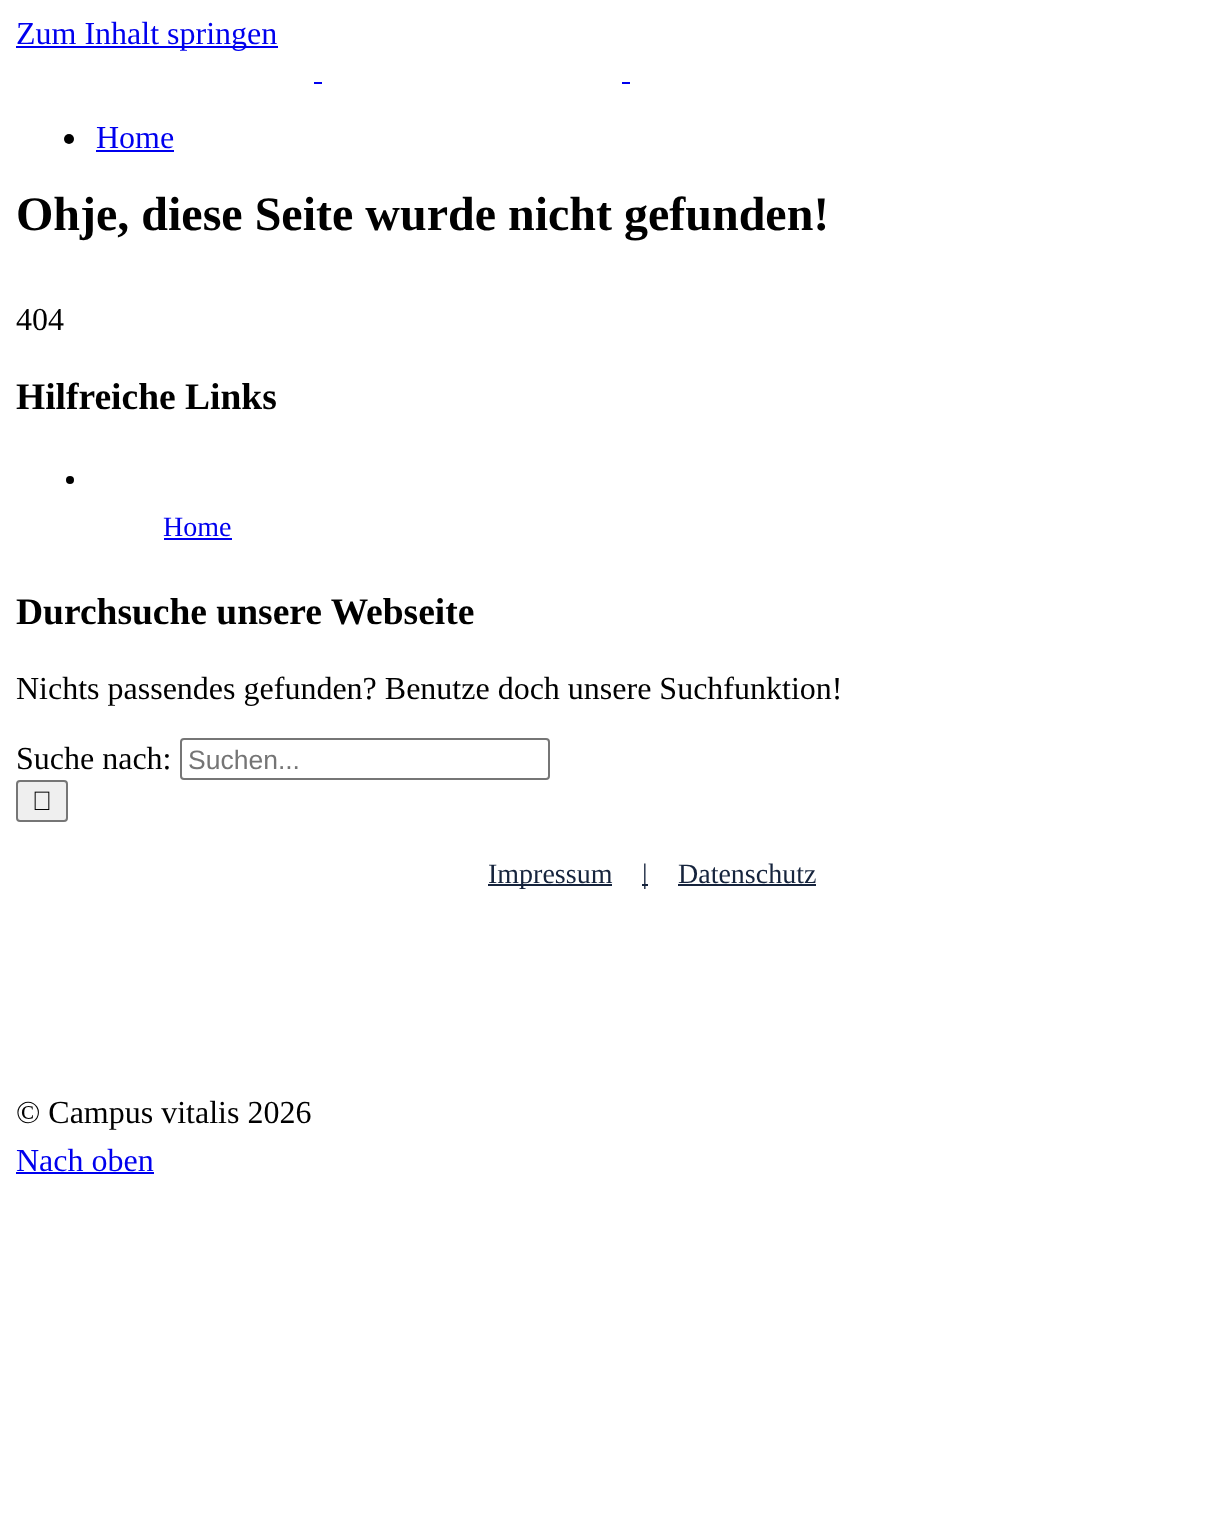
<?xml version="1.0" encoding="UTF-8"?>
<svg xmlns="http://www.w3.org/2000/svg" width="1223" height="1518">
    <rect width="100%" height="100%" fill="#FFFFFF"/>
    <rect x="16" y="46" width="262" height="2" fill="#0000EE"/>
    <text x="16" y="44" font-family="Liberation Serif" font-size="32" fill="#0000EE">Zum Inhalt springen</text>
    <rect x="314" y="82" width="8" height="2" fill="#0000EE"/>
    <rect x="622" y="82" width="8" height="2" fill="#0000EE"/>
    <circle cx="69" cy="139" r="5" fill="#000000"/>
    <text x="96" y="148" font-family="Liberation Serif" font-size="32" fill="#0000EE">Home</text>
    <rect x="96" y="150" width="78" height="2" fill="#0000EE"/>
    <text x="16" y="230" font-family="Liberation Serif" font-size="48" font-weight="700" fill="#000000">Ohje, diese Seite wurde nicht gefunden!</text>
    <text x="16" y="330" font-family="Liberation Serif" font-size="32" fill="#000000">404</text>
    <text x="16" y="409" font-family="Liberation Serif" font-size="37.5" font-weight="700" fill="#000000">Hilfreiche Links</text>
    <circle cx="70" cy="480" r="4" fill="#000000"/>
    <text x="163" y="536" font-family="Liberation Serif" font-size="28" fill="#0000EE">Home</text>
    <rect x="164" y="538" width="68" height="2" fill="#0000EE"/>
    <text x="16" y="624" font-family="Liberation Serif" font-size="37.5" font-weight="700" fill="#000000">Durchsuche unsere Webseite</text>
    <text x="16" y="699" font-family="Liberation Serif" font-size="32" fill="#000000">Nichts passendes gefunden? Benutze doch unsere Suchfunktion!</text>
    <text x="16" y="769" font-family="Liberation Serif" font-size="32" fill="#000000">Suche nach:</text>
    <rect x="181" y="739" width="368" height="40" rx="3" fill="none" stroke="#767676" stroke-width="2"/>
    <text x="188" y="769" font-family="Liberation Sans" font-size="26.5" fill="#757575">Suchen...</text>
    <rect x="17" y="781" width="50" height="40" rx="3" fill="#EFEFEF" stroke="#767676" stroke-width="2"/>
    <image x="34" y="791" width="16" height="19" href="img_01.png"/>
    <rect x="488" y="884" width="124" height="2" fill="#16243D"/>
    <text x="488" y="883" font-family="Liberation Serif" font-size="28" fill="#16243D">Impressum</text>
    <rect x="642" y="884" width="6" height="2" fill="#16243D"/>
    <text x="642" y="883" font-family="Liberation Serif" font-size="28" fill="#16243D">|</text>
    <text x="678" y="883" font-family="Liberation Serif" font-size="28" fill="#16243D">Datenschutz</text>
    <rect x="678" y="884" width="138" height="2" fill="#16243D"/>
    <text x="16" y="1123" font-family="Liberation Serif" font-size="32" fill="#000000">© Campus vitalis 2026</text>
    <text x="16" y="1171" font-family="Liberation Serif" font-size="32" fill="#0000EE">Nach oben</text>
    <rect x="16" y="1172" width="138" height="2" fill="#0000EE"/>
</svg>
